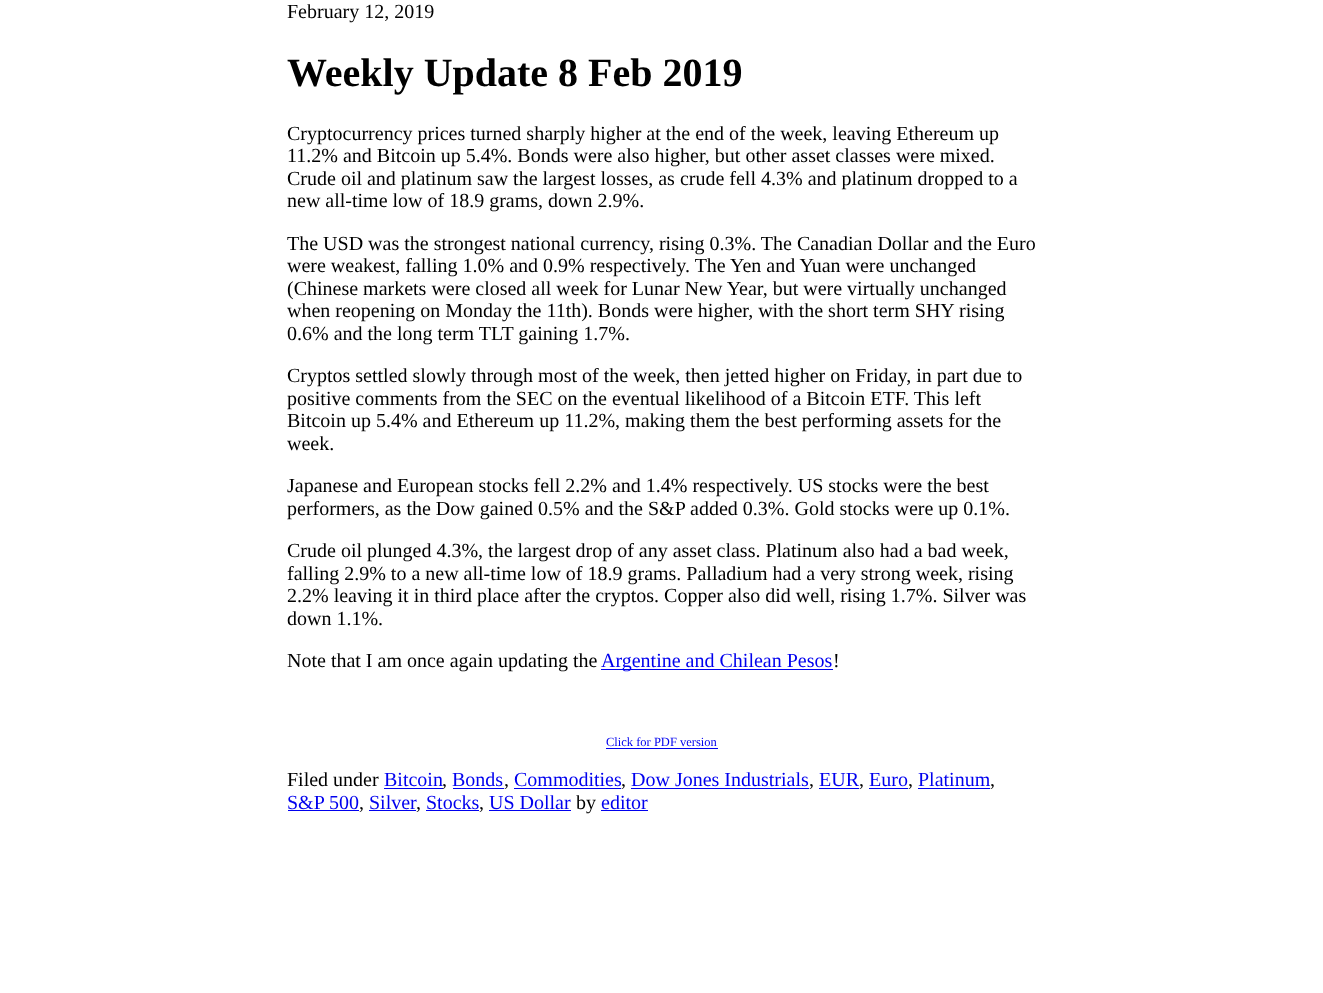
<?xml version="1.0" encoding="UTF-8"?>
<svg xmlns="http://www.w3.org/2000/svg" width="1323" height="993">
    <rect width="100%" height="100%" fill="#FFFFFF"/>
    <text x="287" y="18" font-family="Liberation Serif" font-size="20" fill="#000000">February 12, 2019</text>
    <text x="287" y="86" font-family="Liberation Serif" font-size="40" font-weight="700" fill="#000000">Weekly Update 8 Feb 2019</text>
    <text font-family="Liberation Serif" font-size="20" fill="#000000">
        <tspan x="287" y="140">Cryptocurrency prices turned sharply higher at the end of the week, leaving Ethereum up</tspan>
        <tspan x="287" y="162">11.2% and Bitcoin up 5.4%. Bonds were also higher, but other asset classes were mixed.</tspan>
        <tspan x="287" y="185">Crude oil and platinum saw the largest losses, as crude fell 4.3% and platinum dropped to a</tspan>
        <tspan x="287" y="207">new all-time low of 18.9 grams, down 2.9%.</tspan>
    </text>
    <text font-family="Liberation Serif" font-size="20" fill="#000000">
        <tspan x="287" y="250">The USD was the strongest national currency, rising 0.3%. The Canadian Dollar and the Euro</tspan>
        <tspan x="287" y="272">were weakest, falling 1.0% and 0.9% respectively. The Yen and Yuan were unchanged</tspan>
        <tspan x="287" y="295">(Chinese markets were closed all week for Lunar New Year, but were virtually unchanged</tspan>
        <tspan x="287" y="317">when reopening on Monday the 11th). Bonds were higher, with the short term SHY rising</tspan>
        <tspan x="287" y="340">0.6% and the long term TLT gaining 1.7%.</tspan>
    </text>
    <text font-family="Liberation Serif" font-size="20" fill="#000000">
        <tspan x="287" y="382">Cryptos settled slowly through most of the week, then jetted higher on Friday, in part due to</tspan>
        <tspan x="287" y="405">positive comments from the SEC on the eventual likelihood of a Bitcoin ETF. This left</tspan>
        <tspan x="287" y="427">Bitcoin up 5.4% and Ethereum up 11.2%, making them the best performing assets for the</tspan>
        <tspan x="287" y="450">week.</tspan>
    </text>
    <text font-family="Liberation Serif" font-size="20" fill="#000000">
        <tspan x="287" y="492">Japanese and European stocks fell 2.2% and 1.4% respectively. US stocks were the best</tspan>
        <tspan x="287" y="515">performers, as the Dow gained 0.5% and the S&amp;P added 0.3%. Gold stocks were up 0.1%.</tspan>
    </text>
    <text font-family="Liberation Serif" font-size="20" fill="#000000">
        <tspan x="287" y="557">Crude oil plunged 4.3%, the largest drop of any asset class. Platinum also had a bad week,</tspan>
        <tspan x="287" y="580">falling 2.9% to a new all-time low of 18.9 grams. Palladium had a very strong week, rising</tspan>
        <tspan x="287" y="602">2.2% leaving it in third place after the cryptos. Copper also did well, rising 1.7%. Silver was</tspan>
        <tspan x="287" y="625">down 1.1%.</tspan>
    </text>
    <text x="287" y="667" font-family="Liberation Serif" font-size="20" fill="#000000">Note that I am once again updating the</text>
    <rect x="601" y="669" width="232" height="1" fill="#0000EE"/>
    <text x="601" y="667" font-family="Liberation Serif" font-size="20" fill="#0000EE">Argentine and Chilean Pesos</text>
    <text x="833" y="667" font-family="Liberation Serif" font-size="20" fill="#000000">!</text>
    <text x="606" y="746" font-family="Liberation Serif" font-size="12.5" fill="#0000EE">Click for PDF version</text>
    <rect x="606" y="748" width="112" height="1" fill="#0000EE"/>
    <text x="287" y="786" font-family="Liberation Serif" font-size="20" fill="#000000">Filed under</text>
    <text x="384" y="786" font-family="Liberation Serif" font-size="20" fill="#0000EE">Bitcoin</text>
    <rect x="384" y="788" width="59" height="1" fill="#0000EE"/>
    <text x="442" y="786" font-family="Liberation Serif" font-size="20" fill="#000000">,</text>
    <text x="452" y="786" font-family="Liberation Serif" font-size="20" fill="#0000EE">Bonds</text>
    <rect x="453" y="788" width="51" height="1" fill="#0000EE"/>
    <text x="504" y="786" font-family="Liberation Serif" font-size="20" fill="#000000">,</text>
    <text x="514" y="786" font-family="Liberation Serif" font-size="20" fill="#0000EE">Commodities</text>
    <rect x="514" y="788" width="107" height="1" fill="#0000EE"/>
    <text x="621" y="786" font-family="Liberation Serif" font-size="20" fill="#000000">,</text>
    <text x="631" y="786" font-family="Liberation Serif" font-size="20" fill="#0000EE">Dow Jones Industrials</text>
    <rect x="631" y="788" width="178" height="1" fill="#0000EE"/>
    <text x="809" y="786" font-family="Liberation Serif" font-size="20" fill="#000000">,</text>
    <text x="819" y="786" font-family="Liberation Serif" font-size="20" fill="#0000EE">EUR</text>
    <rect x="819" y="788" width="40" height="1" fill="#0000EE"/>
    <text x="859" y="786" font-family="Liberation Serif" font-size="20" fill="#000000">,</text>
    <text x="869" y="786" font-family="Liberation Serif" font-size="20" fill="#0000EE">Euro</text>
    <rect x="869" y="788" width="39" height="1" fill="#0000EE"/>
    <text x="908" y="786" font-family="Liberation Serif" font-size="20" fill="#000000">,</text>
    <text x="918" y="786" font-family="Liberation Serif" font-size="20" fill="#0000EE">Platinum</text>
    <rect x="918" y="788" width="72" height="1" fill="#0000EE"/>
    <text x="990" y="786" font-family="Liberation Serif" font-size="20" fill="#000000">,</text>
    <text x="287" y="809" font-family="Liberation Serif" font-size="20" fill="#0000EE">S&amp;P 500</text>
    <rect x="288" y="810" width="71" height="1" fill="#0000EE"/>
    <text x="359" y="809" font-family="Liberation Serif" font-size="20" fill="#000000">,</text>
    <text x="369" y="809" font-family="Liberation Serif" font-size="20" fill="#0000EE">Silver</text>
    <rect x="369" y="810" width="47" height="1" fill="#0000EE"/>
    <text x="416" y="809" font-family="Liberation Serif" font-size="20" fill="#000000">,</text>
    <text x="426" y="809" font-family="Liberation Serif" font-size="20" fill="#0000EE">Stocks</text>
    <rect x="426" y="810" width="53" height="1" fill="#0000EE"/>
    <text x="479" y="809" font-family="Liberation Serif" font-size="20" fill="#000000">,</text>
    <text x="489" y="809" font-family="Liberation Serif" font-size="20" fill="#0000EE">US Dollar</text>
    <rect x="489" y="810" width="82" height="1" fill="#0000EE"/>
    <text x="576" y="809" font-family="Liberation Serif" font-size="20" fill="#000000">by</text>
    <text x="601" y="809" font-family="Liberation Serif" font-size="20" fill="#0000EE">editor</text>
    <rect x="601" y="810" width="47" height="1" fill="#0000EE"/>
</svg>
